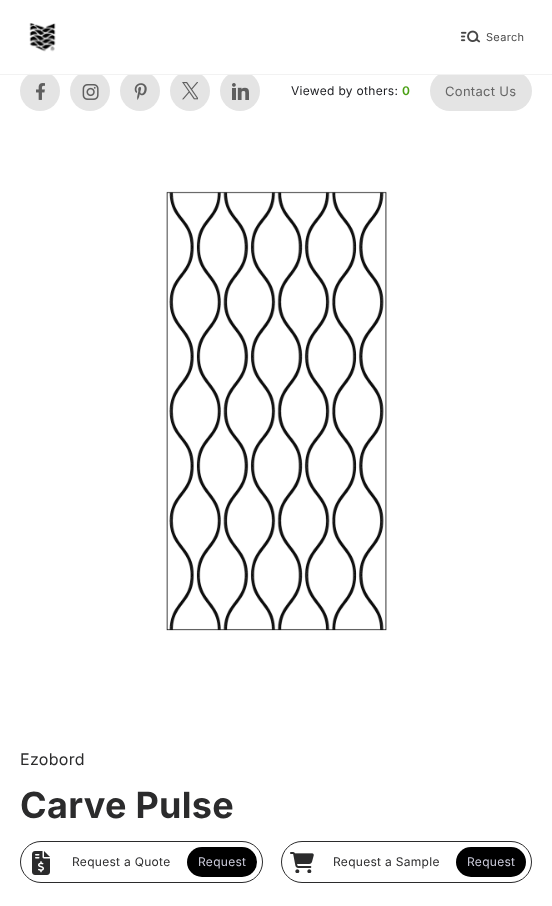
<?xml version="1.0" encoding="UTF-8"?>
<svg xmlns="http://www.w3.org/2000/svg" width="552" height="906">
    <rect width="100%" height="100%" fill="#FFFFFF"/>
    <circle cx="40" cy="91" r="20" fill="#E4E4E4"/>
    <circle cx="90" cy="91" r="20" fill="#E4E4E4"/>
    <circle cx="140" cy="91" r="20" fill="#E4E4E4"/>
    <circle cx="190" cy="91" r="20" fill="#E4E4E4"/>
    <circle cx="240" cy="91" r="20" fill="#E4E4E4"/>
    <rect x="430" y="71" width="102" height="40" rx="20" fill="#E4E4E4"/>
    <rect x="30" y="71" width="492" height="3" fill="#FFFFFF"/>
    <rect x="0" y="74" width="552" height="1" fill="#F2F2F2"/>
    <image x="29" y="23" width="27" height="29" href="img_01.png"/>
    <image x="460" y="30" width="21" height="13" href="img_02.png"/>
    <text x="486" y="41" font-family="Inter" font-size="11" letter-spacing="0.3" fill="#4B4B4B">Search</text>
    <image x="36" y="83" width="9" height="17" href="img_03.png"/>
    <image x="82" y="84" width="17" height="16" href="img_04.png"/>
    <image x="134" y="83" width="13" height="17" href="img_05.png"/>
    <image x="182" y="82" width="16" height="18" href="img_06.png"/>
    <image x="232" y="83" width="17" height="17" href="img_07.png"/>
    <text x="291" y="95" font-family="Inter" font-size="12" letter-spacing="0.3" fill="#1A1B1F">Viewed by others:</text>
    <text x="402" y="95" font-family="Inter" font-size="12" font-weight="600" letter-spacing="0.3" fill="#49A013">0</text>
    <text x="445" y="96" font-family="Inter" font-size="13" letter-spacing="0.3" fill="#666666">Contact Us</text>
    <image x="166" y="191" width="221" height="440" href="img_08.png"/>
    <text x="20" y="765" font-family="Inter" font-size="16" letter-spacing="0.3" fill="#2B2B2C">Ezobord</text>
    <text x="20" y="818" font-family="Inter" font-size="36" font-weight="700" letter-spacing="0.3" fill="#2B2B2C">Carve Pulse</text>
    <rect x="20.5" y="841.5" width="242" height="41" rx="20.5" fill="none" stroke="#2B2B2C"/>
    <image x="32" y="851" width="18" height="24" href="img_09.png"/>
    <text x="72" y="866" font-family="Inter" font-size="12" letter-spacing="0.3" fill="#2B2B2C">Request a Quote</text>
    <rect x="187" y="847" width="70" height="30" rx="15" fill="#000000"/>
    <text x="198" y="866" font-family="Inter" font-size="12" letter-spacing="0.3" fill="#CCCCDB">Request</text>
    <rect x="281.5" y="841.5" width="250" height="41" rx="20.5" fill="none" stroke="#2B2B2C"/>
    <image x="290" y="852" width="24" height="21" href="img_10.png"/>
    <text x="333" y="866" font-family="Inter" font-size="12" letter-spacing="0.3" fill="#2B2B2C">Request a Sample</text>
    <rect x="456" y="847" width="70" height="30" rx="15" fill="#000000"/>
    <text x="467" y="866" font-family="Inter" font-size="12" letter-spacing="0.3" fill="#CCCCDB">Request</text>
</svg>
